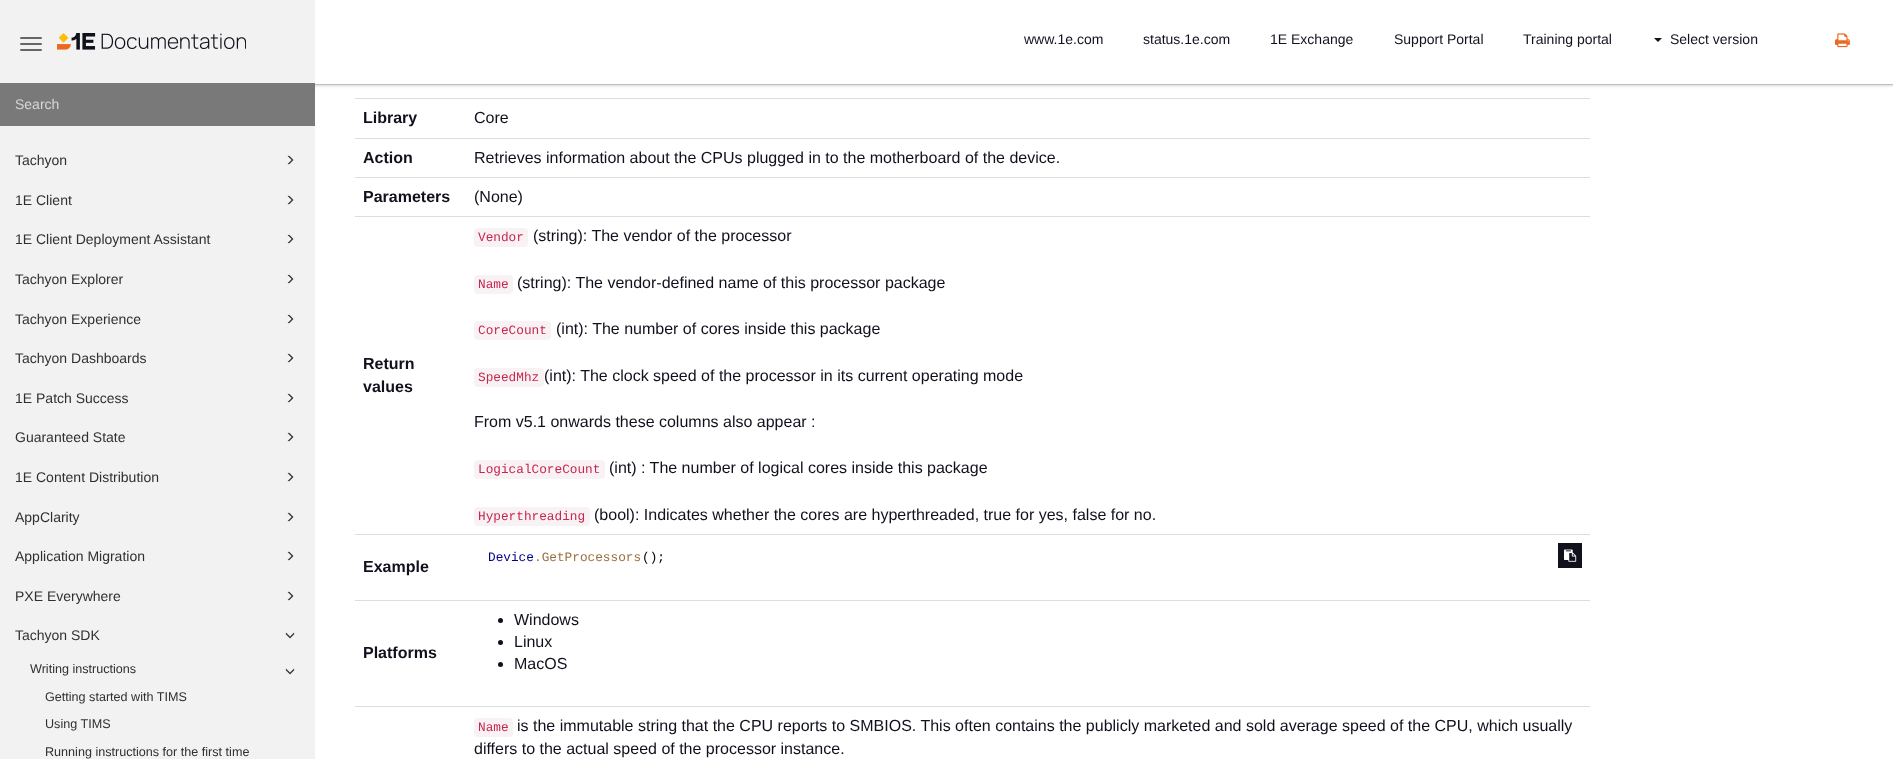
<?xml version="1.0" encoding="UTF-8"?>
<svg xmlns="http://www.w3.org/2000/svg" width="1893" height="759">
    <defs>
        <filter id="blur1" x="-50%" y="-200%" width="200%" height="500%"><feGaussianBlur stdDeviation="2.5"/></filter>
        <filter id="blur2" x="-50%" y="-200%" width="200%" height="500%"><feGaussianBlur stdDeviation="1"/></filter>
        <filter id="blur3" x="-50%" y="-200%" width="200%" height="500%"><feGaussianBlur stdDeviation="0.5"/></filter>
    </defs>
    <rect width="100%" height="100%" fill="#FFFFFF"/>
    <rect x="-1" y="-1" width="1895" height="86" fill="#000000" fill-opacity="0.08" filter="url(#blur1)"/>
    <rect x="-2" y="-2" width="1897" height="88" fill="#000000" fill-opacity="0.1" filter="url(#blur2)"/>
    <rect x="-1" y="-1" width="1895" height="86" fill="#000000" fill-opacity="0.14" filter="url(#blur3)"/>
    <rect x="0" y="0" width="315" height="759" fill="#F2F2F2"/>
    <rect x="20" y="37" width="22" height="2" rx="1" fill="#666666"/>
    <rect x="20" y="43" width="22" height="2" rx="1" fill="#666666"/>
    <rect x="20" y="49" width="22" height="2" rx="1" fill="#666666"/>
    <image x="57" y="33" width="189" height="17" href="img_01.png"/>
    <rect x="0" y="83" width="315" height="43" fill="#797979"/>
    <text x="15" y="109" font-family="Liberation Sans" font-size="14" fill="#D7D7D7">Search</text>
    <text x="15" y="165" font-family="Liberation Sans" font-size="14" fill="#303030">Tachyon</text>
    <image x="287" y="155" width="7" height="10" href="img_02.png"/>
    <text x="15" y="205" font-family="Liberation Sans" font-size="14" fill="#303030">1E Client</text>
    <image x="287" y="195" width="7" height="10" href="img_02.png"/>
    <text x="15" y="244" font-family="Liberation Sans" font-size="14" fill="#303030">1E Client Deployment Assistant</text>
    <image x="287" y="234" width="7" height="10" href="img_02.png"/>
    <text x="15" y="284" font-family="Liberation Sans" font-size="14" fill="#303030">Tachyon Explorer</text>
    <image x="287" y="274" width="7" height="10" href="img_02.png"/>
    <text x="15" y="324" font-family="Liberation Sans" font-size="14" fill="#303030">Tachyon Experience</text>
    <image x="287" y="314" width="7" height="10" href="img_02.png"/>
    <text x="15" y="363" font-family="Liberation Sans" font-size="14" fill="#303030">Tachyon Dashboards</text>
    <image x="287" y="353" width="7" height="10" href="img_02.png"/>
    <text x="15" y="403" font-family="Liberation Sans" font-size="14" fill="#303030">1E Patch Success</text>
    <image x="287" y="393" width="7" height="10" href="img_02.png"/>
    <text x="15" y="442" font-family="Liberation Sans" font-size="14" fill="#303030">Guaranteed State</text>
    <image x="287" y="432" width="7" height="10" href="img_02.png"/>
    <text x="15" y="482" font-family="Liberation Sans" font-size="14" fill="#303030">1E Content Distribution</text>
    <image x="287" y="472" width="7" height="10" href="img_02.png"/>
    <text x="15" y="522" font-family="Liberation Sans" font-size="14" fill="#303030">AppClarity</text>
    <image x="287" y="512" width="7" height="10" href="img_02.png"/>
    <text x="15" y="561" font-family="Liberation Sans" font-size="14" fill="#303030">Application Migration</text>
    <image x="287" y="551" width="7" height="10" href="img_02.png"/>
    <text x="15" y="601" font-family="Liberation Sans" font-size="14" fill="#303030">PXE Everywhere</text>
    <image x="287" y="591" width="7" height="10" href="img_02.png"/>
    <text x="15" y="640" font-family="Liberation Sans" font-size="14" fill="#303030">Tachyon SDK</text>
    <image x="285" y="632" width="10" height="7" href="img_03.png"/>
    <text x="30" y="673" font-family="Liberation Sans" font-size="12.6" fill="#303030">Writing instructions</text>
    <image x="285" y="668" width="10" height="7" href="img_03.png"/>
    <text x="45" y="701" font-family="Liberation Sans" font-size="12.6" fill="#303030">Getting started with TIMS</text>
    <text x="45" y="728" font-family="Liberation Sans" font-size="12.6" fill="#303030">Using TIMS</text>
    <text x="45" y="756" font-family="Liberation Sans" font-size="12.6" fill="#303030">Running instructions for the first time</text>
    <rect x="315" y="0" width="1578" height="84" fill="#FFFFFF"/>
    <text x="1024" y="44" font-family="Liberation Sans" font-size="14" fill="#10111D">www.1e.com</text>
    <text x="1143" y="44" font-family="Liberation Sans" font-size="14" fill="#10111D">status.1e.com</text>
    <text x="1270" y="44" font-family="Liberation Sans" font-size="14" fill="#10111D">1E Exchange</text>
    <text x="1394" y="44" font-family="Liberation Sans" font-size="14" fill="#10111D">Support Portal</text>
    <text x="1523" y="44" font-family="Liberation Sans" font-size="14" fill="#10111D">Training portal</text>
    <path d="M 1654 38 H 1662 L 1658 42 Z" fill="#10111D"/>
    <text x="1670" y="44" font-family="Liberation Sans" font-size="14" fill="#10111D">Select version</text>
    <image x="1835" y="33" width="15" height="15" href="img_04.png"/>
    <text x="363" y="123" font-family="Liberation Sans" font-size="16" font-weight="700" fill="#10111D">Library</text>
    <rect x="355" y="98" width="1235" height="1" fill="#DDDDDD"/>
    <text x="474" y="123" font-family="Liberation Sans" font-size="16" fill="#10111D">Core</text>
    <text x="363" y="163" font-family="Liberation Sans" font-size="16" font-weight="700" fill="#10111D">Action</text>
    <rect x="355" y="138" width="1235" height="1" fill="#DDDDDD"/>
    <text x="474" y="163" font-family="Liberation Sans" font-size="16" fill="#10111D">Retrieves information about the CPUs plugged in to the motherboard of the device.</text>
    <text x="363" y="202" font-family="Liberation Sans" font-size="16" font-weight="700" fill="#10111D">Parameters</text>
    <rect x="355" y="177" width="1235" height="1" fill="#DDDDDD"/>
    <text x="474" y="202" font-family="Liberation Sans" font-size="16" fill="#10111D">(None)</text>
    <text font-family="Liberation Sans" font-size="16" font-weight="700" fill="#10111D">
        <tspan x="363" y="369">Return</tspan>
        <tspan x="363" y="392">values</tspan>
    </text>
    <rect x="355" y="216" width="1235" height="1" fill="#DDDDDD"/>
    <rect x="474" y="228" width="54" height="19" rx="4" fill="#F9F2F4"/>
    <text x="478" y="241" font-family="Liberation Mono" font-size="12.75" fill="#C7254E">Vendor</text>
    <text x="533" y="241" font-family="Liberation Sans" font-size="16" fill="#10111D">(string): The vendor of the processor</text>
    <rect x="474" y="275" width="39" height="19" rx="4" fill="#F9F2F4"/>
    <text x="478" y="288" font-family="Liberation Mono" font-size="12.75" fill="#C7254E">Name</text>
    <text x="517" y="288" font-family="Liberation Sans" font-size="16" fill="#10111D">(string): The vendor-defined name of this processor package</text>
    <rect x="474" y="321" width="77" height="19" rx="4" fill="#F9F2F4"/>
    <text x="478" y="334" font-family="Liberation Mono" font-size="12.75" fill="#C7254E">CoreCount</text>
    <text x="556" y="334" font-family="Liberation Sans" font-size="16" fill="#10111D">(int): The number of cores inside this package</text>
    <rect x="474" y="368" width="70" height="19" rx="4" fill="#F9F2F4"/>
    <text x="478" y="381" font-family="Liberation Mono" font-size="12.75" fill="#C7254E">SpeedMhz</text>
    <text x="544" y="381" font-family="Liberation Sans" font-size="16" fill="#10111D">(int): The clock speed of the processor in its current operating mode</text>
    <text x="474" y="427" font-family="Liberation Sans" font-size="16" fill="#10111D">From v5.1 onwards these columns also appear :</text>
    <rect x="474" y="460" width="131" height="19" rx="4" fill="#F9F2F4"/>
    <text x="478" y="473" font-family="Liberation Mono" font-size="12.75" fill="#C7254E">LogicalCoreCount</text>
    <text x="609" y="473" font-family="Liberation Sans" font-size="16" fill="#10111D">(int) : The number of logical cores inside this package</text>
    <rect x="474" y="507" width="116" height="19" rx="4" fill="#F9F2F4"/>
    <text x="478" y="520" font-family="Liberation Mono" font-size="12.75" fill="#C7254E">Hyperthreading</text>
    <text x="594" y="520" font-family="Liberation Sans" font-size="16" fill="#10111D">(bool): Indicates whether the cores are hyperthreaded, true for yes, false for no.</text>
    <rect x="355" y="534" width="1235" height="1" fill="#DDDDDD"/>
    <text x="488" y="561" font-family="Liberation Mono" font-size="12.75" fill="#000088">Device</text>
    <text x="534" y="561" font-family="Liberation Mono" font-size="12.75" fill="#9B703F">.GetProcessors</text>
    <text x="642" y="561" font-family="Liberation Mono" font-size="12.75" fill="#000000">();</text>
    <rect x="1558" y="543" width="24" height="25" fill="#10111D"/>
    <image x="1564" y="549" width="13" height="13" href="img_05.png"/>
    <text x="363" y="572" font-family="Liberation Sans" font-size="16" font-weight="700" fill="#10111D">Example</text>
    <text x="363" y="658" font-family="Liberation Sans" font-size="16" font-weight="700" fill="#10111D">Platforms</text>
    <rect x="355" y="600" width="1235" height="1" fill="#DDDDDD"/>
    <circle cx="500.5" cy="620.5" r="2.5" fill="#10111D"/>
    <text x="514" y="625" font-family="Liberation Sans" font-size="16" fill="#10111D">Windows</text>
    <circle cx="500.5" cy="642.5" r="2.5" fill="#10111D"/>
    <text x="514" y="647" font-family="Liberation Sans" font-size="16" fill="#10111D">Linux</text>
    <circle cx="500.5" cy="664.5" r="2.5" fill="#10111D"/>
    <text x="514" y="669" font-family="Liberation Sans" font-size="16" fill="#10111D">MacOS</text>
    <rect x="355" y="706" width="1235" height="1" fill="#DDDDDD"/>
    <rect x="474" y="718" width="39" height="19" rx="4" fill="#F9F2F4"/>
    <text x="478" y="731" font-family="Liberation Mono" font-size="12.75" fill="#C7254E">Name</text>
    <text x="517" y="731" font-family="Liberation Sans" font-size="16" fill="#10111D">is the immutable string that the CPU reports to SMBIOS. This often contains the publicly marketed and sold average speed of the CPU, which usually</text>
    <text x="474" y="754" font-family="Liberation Sans" font-size="16" fill="#10111D">differs to the actual speed of the processor instance.</text>
</svg>
